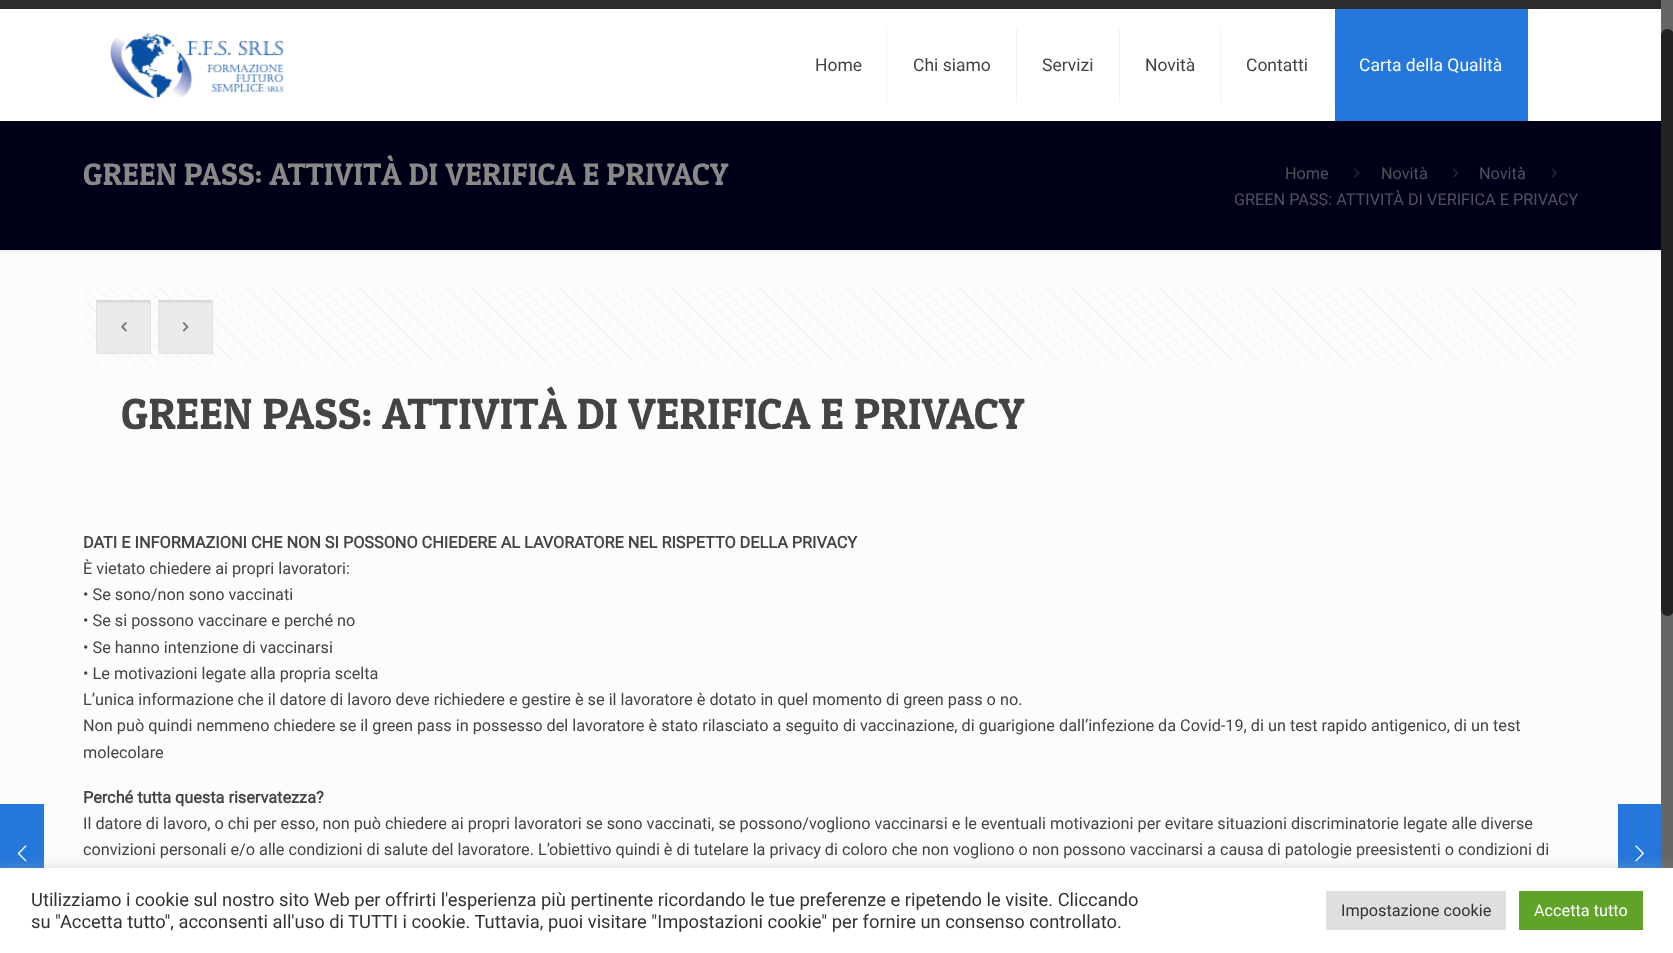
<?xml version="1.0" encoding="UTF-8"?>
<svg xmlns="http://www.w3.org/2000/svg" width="1673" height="953">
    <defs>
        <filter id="blur1" x="-50%" y="-200%" width="200%" height="500%"><feGaussianBlur stdDeviation="6"/></filter>
    </defs>
    <rect width="100%" height="100%" fill="#FCFCFC"/>
    <rect x="0" y="804" width="44" height="64" fill="#2477DB"/>
    <image x="17" y="845" width="10" height="17" href="img_01.png"/>
    <rect x="0" y="121" width="1661" height="129" fill="#000119"/>
    <rect x="0" y="0" width="1661" height="9" fill="#2C2C2C"/>
    <rect x="0" y="9" width="1661" height="112" fill="#FFFFFF"/>
    <image x="109" y="33" width="175" height="66" href="img_02.png"/>
    <rect x="886" y="28" width="1" height="75" fill="#F2F2F2"/>
    <text x="815" y="71" font-family="Roboto" font-size="17.5" fill="#444444">Home</text>
    <rect x="1016" y="28" width="1" height="75" fill="#F2F2F2"/>
    <text x="913" y="71" font-family="Roboto" font-size="17.5" fill="#444444">Chi siamo</text>
    <rect x="1119" y="28" width="1" height="75" fill="#F2F2F2"/>
    <text x="1042" y="71" font-family="Roboto" font-size="17.5" fill="#444444">Servizi</text>
    <rect x="1220" y="28" width="1" height="75" fill="#F2F2F2"/>
    <text x="1145" y="71" font-family="Roboto" font-size="17.5" fill="#444444">Novità</text>
    <rect x="1334" y="28" width="1" height="75" fill="#F2F2F2"/>
    <text x="1246" y="71" font-family="Roboto" font-size="17.5" fill="#444444">Contatti</text>
    <rect x="1335" y="9" width="193" height="112" fill="#2477DB"/>
    <text x="1359" y="71" font-family="Roboto" font-size="17.5" fill="#FFFFFF">Carta della Qualità</text>
    <text x="83" y="185" font-family="Patua One" font-size="31.25" fill="#888888">GREEN PASS: ATTIVITÀ DI VERIFICA E PRIVACY</text>
    <text x="1285" y="179" font-family="Roboto" font-size="16.25" fill="#52525C">Home</text>
    <image x="1354" y="168" width="6" height="10" href="img_03.png"/>
    <text x="1381" y="179" font-family="Roboto" font-size="16.25" fill="#52525C">Novità</text>
    <image x="1453" y="168" width="6" height="10" href="img_04.png"/>
    <text x="1479" y="179" font-family="Roboto" font-size="16.25" fill="#52525C">Novità</text>
    <image x="1551" y="168" width="6" height="10" href="img_05.png"/>
    <text x="1234" y="205" font-family="Roboto" font-size="16.25" fill="#52525C">GREEN PASS: ATTIVITÀ DI VERIFICA E PRIVACY</text>
    <image x="0" y="250" width="1661" height="2" href="img_06.png"/>
    <image x="84" y="287" width="1493" height="79" href="img_07.png"/>
    <rect x="96" y="300" width="55" height="54" rx="6" fill="#F7F7F7"/>
    <rect x="97" y="300" width="53" height="3" fill="#000000" fill-opacity="0.05"/>
    <rect x="96.5" y="300.5" width="54" height="53" fill="none" stroke="#000000" stroke-opacity="0.03"/>
    <rect x="96" y="300" width="55" height="54" fill="#000000" fill-opacity="0.05"/>
    <image x="121" y="322" width="6" height="10" href="img_08.png"/>
    <rect x="158" y="300" width="55" height="54" rx="6" fill="#F7F7F7"/>
    <rect x="159" y="300" width="52" height="3" fill="#000000" fill-opacity="0.05"/>
    <rect x="158.5" y="300.5" width="54" height="53" fill="none" stroke="#000000" stroke-opacity="0.03"/>
    <rect x="158" y="300" width="55" height="54" fill="#000000" fill-opacity="0.05"/>
    <image x="182" y="322" width="7" height="10" href="img_09.png"/>
    <text x="121" y="429" font-family="Patua One" font-size="43.75" fill="#444444">GREEN PASS: ATTIVITÀ DI VERIFICA E PRIVACY</text>
    <text x="83" y="548" font-family="Roboto" font-size="16.25" font-weight="700" fill="#444444">DATI E INFORMAZIONI CHE NON SI POSSONO CHIEDERE AL LAVORATORE NEL RISPETTO DELLA PRIVACY</text>
    <text font-family="Roboto" font-size="16.25" fill="#444444">
        <tspan x="83" y="574">È vietato chiedere ai propri lavoratori:</tspan>
        <tspan x="83" y="600">• Se sono/non sono vaccinati</tspan>
        <tspan x="83" y="626">• Se si possono vaccinare e perché no</tspan>
        <tspan x="83" y="653">• Se hanno intenzione di vaccinarsi</tspan>
        <tspan x="83" y="679">• Le motivazioni legate alla propria scelta</tspan>
        <tspan x="83" y="705">L’unica informazione che il datore di lavoro deve richiedere e gestire è se il lavoratore è dotato in quel momento di green pass o no.</tspan>
        <tspan x="83" y="731">Non può quindi nemmeno chiedere se il green pass in possesso del lavoratore è stato rilasciato a seguito di vaccinazione, di guarigione dall’infezione da Covid-19, di un test rapido antigenico, di un test</tspan>
        <tspan x="83" y="758">molecolare</tspan>
    </text>
    <text x="83" y="803" font-family="Roboto" font-size="16.25" font-weight="700" fill="#444444">Perché tutta questa riservatezza?</text>
    <text font-family="Roboto" font-size="16.25" fill="#444444">
        <tspan x="83" y="829">Il datore di lavoro, o chi per esso, non può chiedere ai propri lavoratori se sono vaccinati, se possono/vogliono vaccinarsi e le eventuali motivazioni per evitare situazioni discriminatorie legate alle diverse</tspan>
        <tspan x="83" y="855">convizioni personali e/o alle condizioni di salute del lavoratore. L’obiettivo quindi è di tutelare la privacy di coloro che non vogliono o non possono vaccinarsi a causa di patologie preesistenti o condizioni di</tspan>
    </text>
    <rect x="1618" y="804" width="43" height="64" fill="#2477DB"/>
    <image x="1635" y="845" width="9" height="17" href="img_10.png"/>
    <rect x="1661" y="0" width="12" height="868" fill="#666666"/>
    <rect x="1661" y="29" width="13" height="587" rx="6.5" fill="#222222"/>
    <rect x="0" y="866" width="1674" height="87" fill="#ACABAB" fill-opacity="0.3" filter="url(#blur1)"/>
    <rect x="0" y="868" width="1673" height="85" fill="#FFFFFF"/>
    <text font-family="Roboto" font-size="18.33" fill="#333333">
        <tspan x="31" y="906">Utilizziamo i cookie sul nostro sito Web per offrirti l'esperienza più pertinente ricordando le tue preferenze e ripetendo le visite. Cliccando</tspan>
        <tspan x="31" y="928">su "Accetta tutto", acconsenti all'uso di TUTTI i cookie. Tuttavia, puoi visitare "Impostazioni cookie" per fornire un consenso controllato.</tspan>
    </text>
    <rect x="1326" y="891" width="180" height="39" fill="#DEDFE0"/>
    <text x="1341" y="916" font-family="Roboto" font-size="16.25" fill="#333333">Impostazione cookie</text>
    <rect x="1519" y="891" width="124" height="39" fill="#61A229"/>
    <text x="1534" y="916" font-family="Roboto" font-size="16.25" fill="#FFFFFF">Accetta tutto</text>
</svg>
